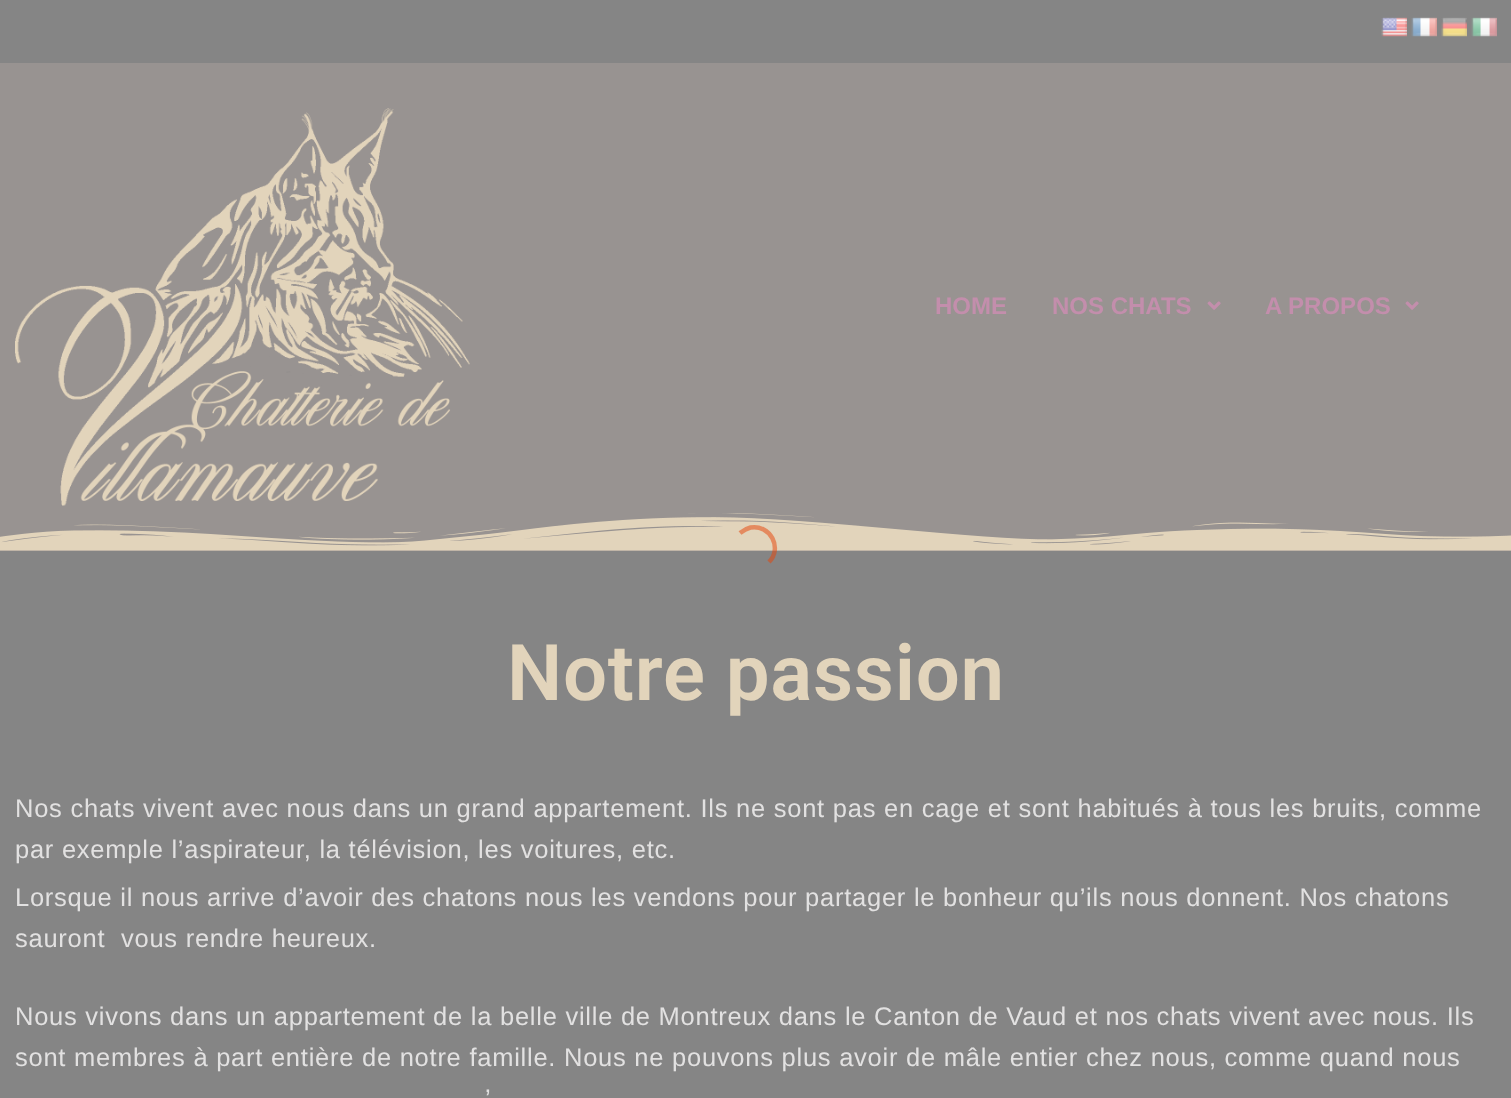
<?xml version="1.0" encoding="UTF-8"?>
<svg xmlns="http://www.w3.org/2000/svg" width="1511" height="1098">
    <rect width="100%" height="100%" fill="#858585"/>
    <image x="1381" y="17" width="26" height="20" href="img_01.png"/>
    <image x="1411" y="17" width="26" height="20" href="img_02.png"/>
    <image x="1441" y="17" width="26" height="20" href="img_03.png"/>
    <image x="1471" y="17" width="26" height="20" href="img_04.png"/>
    <rect x="0" y="63" width="1511" height="488" fill="#989391"/>
    <image x="15" y="108" width="455" height="398" href="img_05.png"/>
    <text x="935" y="314" font-family="Liberation Sans" font-size="24" font-weight="700" fill="#C38EAC">HOME</text>
    <text x="1052" y="314" font-family="Liberation Sans" font-size="24" font-weight="700" fill="#C38EAC">NOS CHATS</text>
    <image x="1207" y="301" width="14" height="9" href="img_06.png"/>
    <text x="1265" y="314" font-family="Liberation Sans" font-size="24" font-weight="700" fill="#C38EAC">A PROPOS</text>
    <image x="1405" y="301" width="14" height="9" href="img_06.png"/>
    <image x="0" y="513" width="1511" height="38" href="img_07.png"/>
    <text x="507" y="700" font-family="Roboto" font-size="78" font-weight="600" letter-spacing="0.75" fill="#E2D4BB">Notre passion</text>
    <text font-family="Liberation Sans" font-size="25.5" letter-spacing="0.75" fill="#E2E1E1" xml:space="preserve"><tspan x="15" y="817">Nos chats vivent avec nous dans un grand appartement. Ils ne sont pas en cage et sont habitués à tous les bruits, comme</tspan><tspan x="15" y="858">par exemple l’aspirateur, la télévision, les voitures, etc.</tspan><tspan x="15" y="906">Lorsque il nous arrive d’avoir des chatons nous les vendons pour partager le bonheur qu’ils nous donnent. Nos chatons</tspan><tspan x="15" y="947">sauront  vous rendre heureux.</tspan></text>
    <text font-family="Liberation Sans" font-size="25.5" letter-spacing="0.75" fill="#E2E1E1">
        <tspan x="15" y="1025">Nous vivons dans un appartement de la belle ville de Montreux dans le Canton de Vaud et nos chats vivent avec nous. Ils</tspan>
        <tspan x="15" y="1066">sont membres à part entière de notre famille. Nous ne pouvons plus avoir de mâle entier chez nous, comme quand nous</tspan>
    </text>
    <text x="485" y="1107" font-family="Liberation Sans" font-size="25.5" letter-spacing="0.75" fill="#E2E1E1">’</text>
    <path d="M 740 533 C 743 530.5 746.5 528.5 750.5 527.5 C 770 524 783 548 769 562" fill="none" stroke="#E7470C" stroke-opacity="0.52" stroke-width="4.5"/>
</svg>
